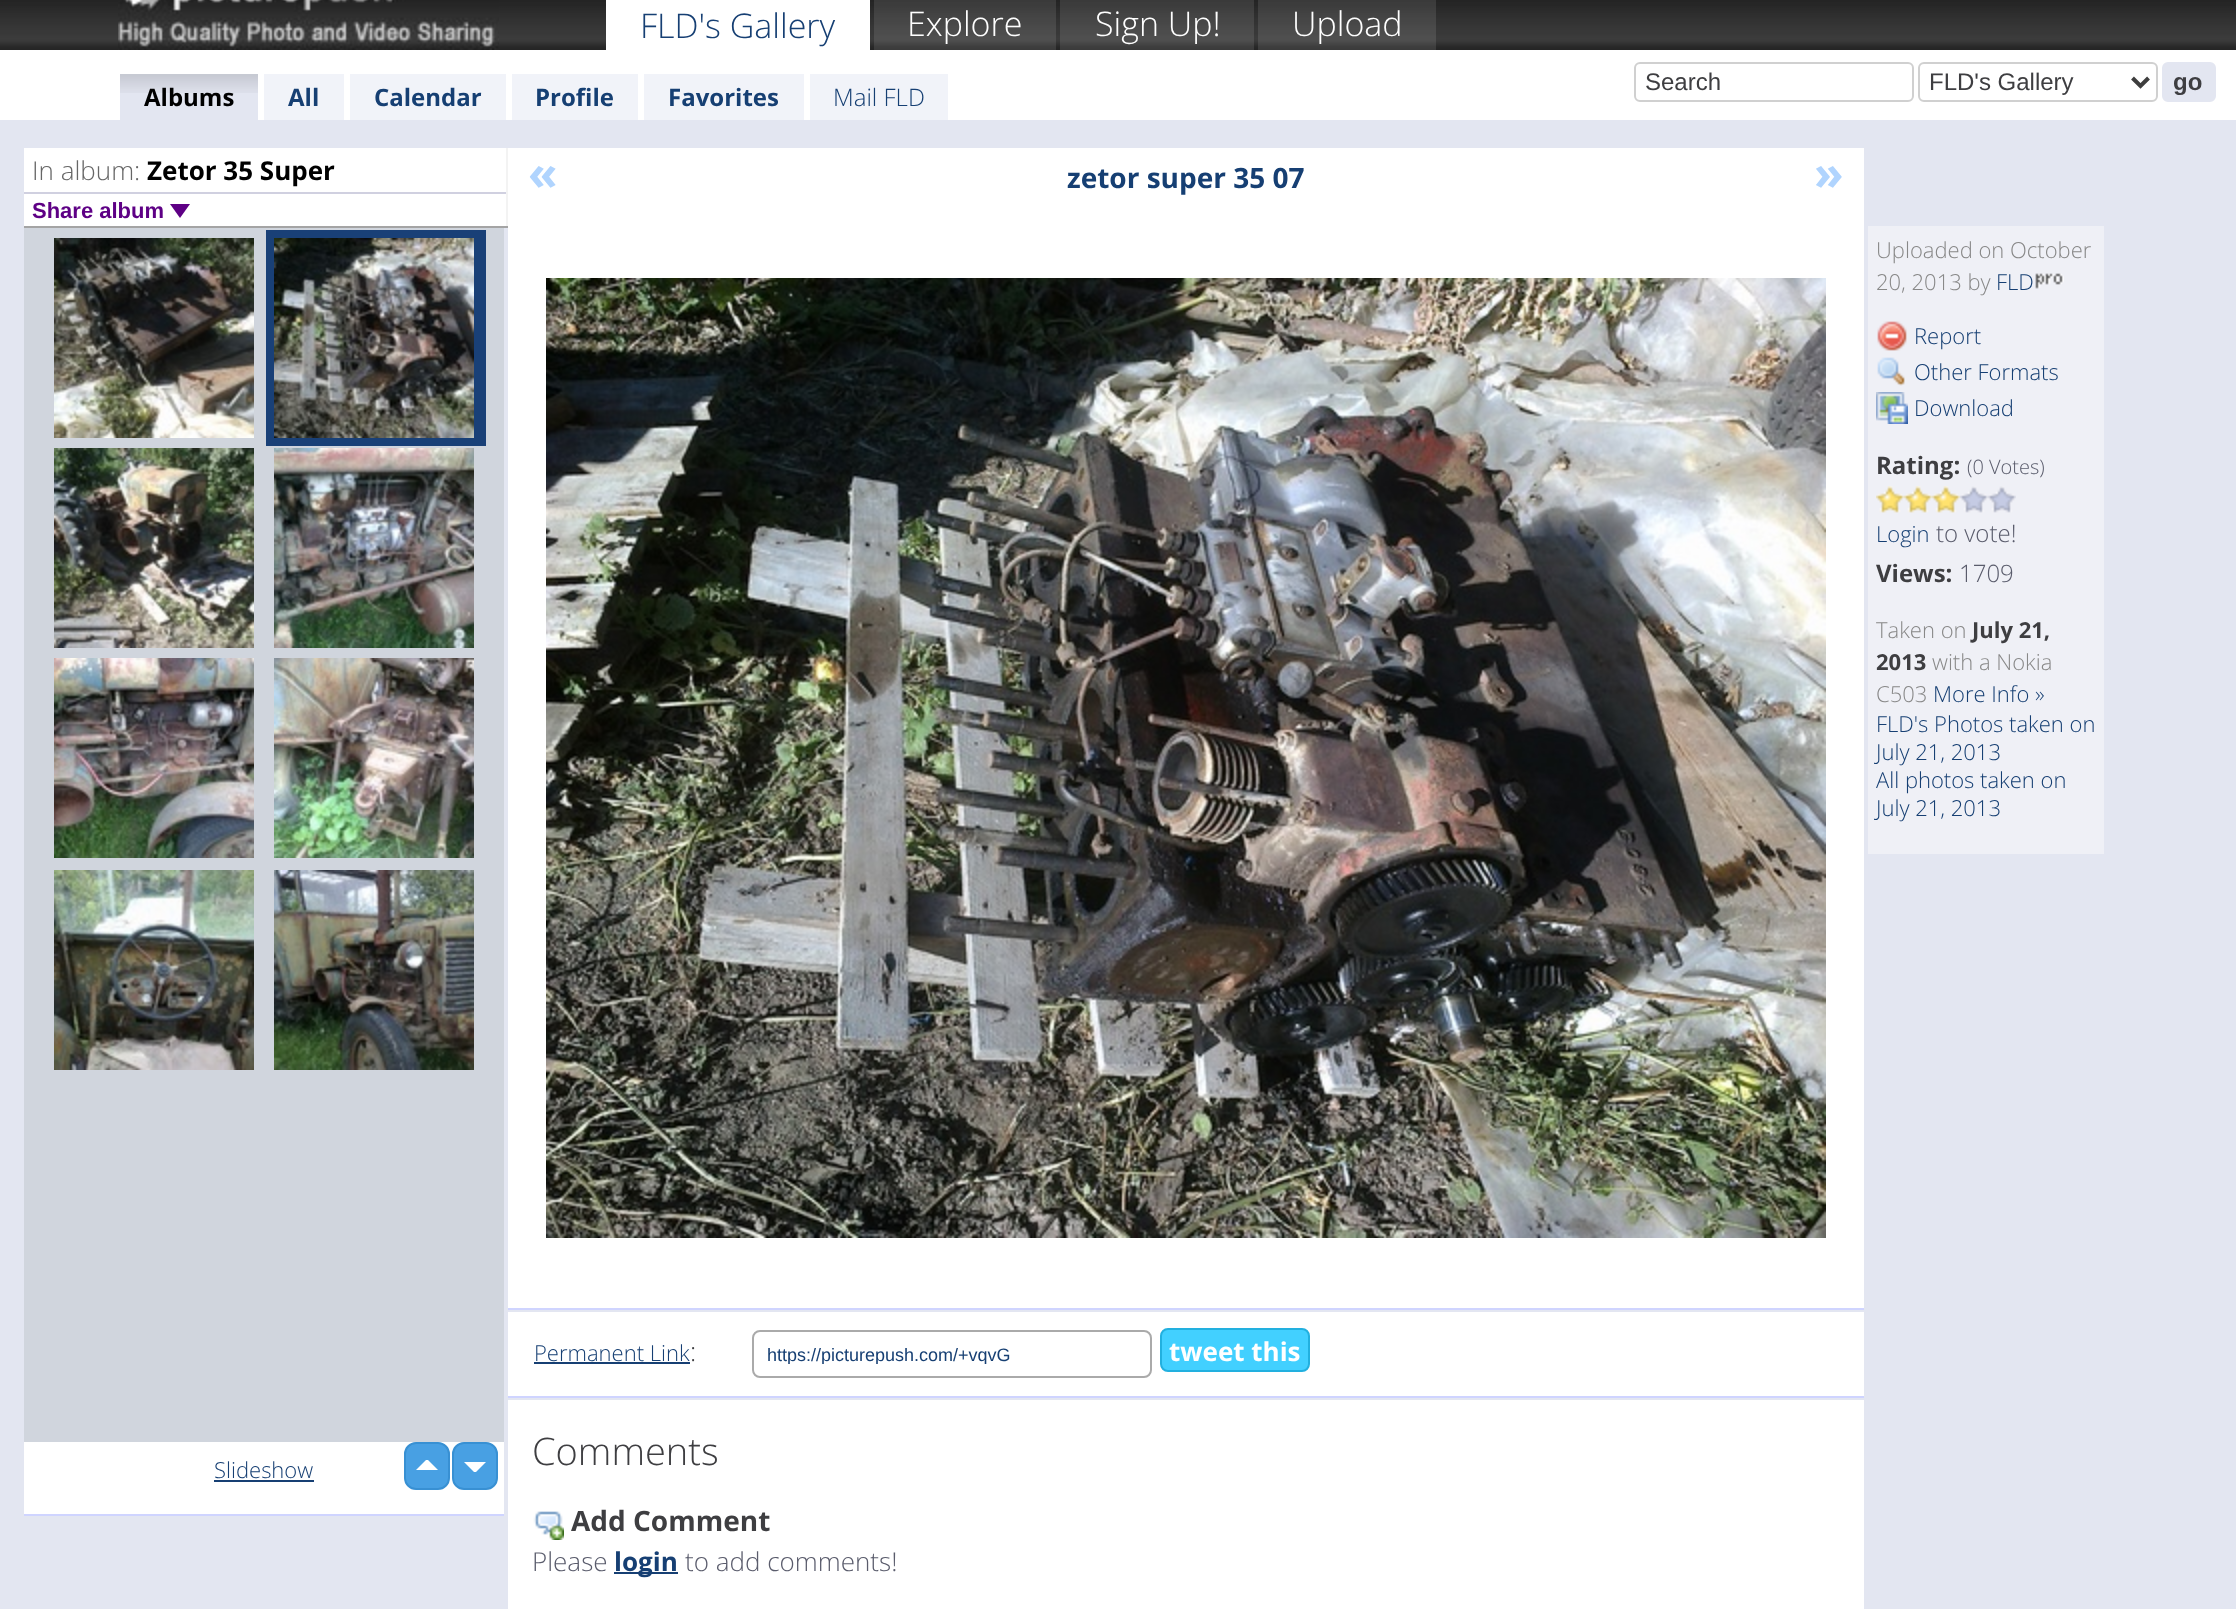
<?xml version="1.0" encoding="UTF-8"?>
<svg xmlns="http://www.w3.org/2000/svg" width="2236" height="1609">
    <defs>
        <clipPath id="clip1"><rect x="766" y="1344" width="372" height="20"/></clipPath>
    </defs>
    <rect width="100%" height="100%" fill="#E3E6F1"/>
    <image x="0" y="0" width="2236" height="50" href="img_01.png"/>
    <image x="118" y="0" width="381" height="50" href="img_02.png"/>
    <rect x="606" y="0" width="264" height="50" fill="#FFFFFF"/>
    <text x="640" y="38" font-family="Open Sans" font-size="34" font-weight="300" fill="#163F73">FLD's Gallery</text>
    <rect x="874" y="0" width="182" height="50" fill="#FFFFFF" fill-opacity="0.1"/>
    <text x="907" y="36" font-family="Open Sans" font-size="34" font-weight="300" fill="#FFFFFF">Explore</text>
    <rect x="1060" y="0" width="194" height="50" fill="#FFFFFF" fill-opacity="0.1"/>
    <text x="1095" y="36" font-family="Open Sans" font-size="34" font-weight="300" fill="#FFFFFF">Sign Up!</text>
    <rect x="1258" y="0" width="178" height="50" fill="#FFFFFF" fill-opacity="0.1"/>
    <text x="1292" y="36" font-family="Open Sans" font-size="34" font-weight="300" fill="#FFFFFF">Upload</text>
    <rect x="0" y="50" width="2236" height="70" fill="#FFFFFF"/>
    <rect x="120" y="74" width="138" height="46" fill="#E3E6F1"/>
    <image x="120" y="74" width="138" height="19" href="img_03.png"/>
    <text x="144" y="106" font-family="Open Sans" font-size="24" font-weight="700" fill="#000000">Albums</text>
    <rect x="264" y="74" width="80" height="46" fill="#F1F3F9"/>
    <text x="288" y="106" font-family="Open Sans" font-size="24" font-weight="700" fill="#163F73">All</text>
    <rect x="350" y="74" width="156" height="46" fill="#F1F3F9"/>
    <text x="374" y="106" font-family="Open Sans" font-size="24" font-weight="700" fill="#163F73">Calendar</text>
    <rect x="512" y="74" width="126" height="46" fill="#F1F3F9"/>
    <text x="535" y="106" font-family="Open Sans" font-size="24" font-weight="700" fill="#163F73">Profile</text>
    <rect x="644" y="74" width="160" height="46" fill="#F1F3F9"/>
    <text x="668" y="106" font-family="Open Sans" font-size="24" font-weight="700" fill="#163F73">Favorites</text>
    <rect x="810" y="74" width="138" height="46" fill="#F1F3F9"/>
    <text x="833" y="106" font-family="Open Sans" font-size="24" font-weight="300" fill="#163F73">Mail FLD</text>
    <rect x="1635" y="63" width="278" height="38" rx="5" fill="none" stroke="#D0D0D0" stroke-width="2"/>
    <text x="1645" y="90" font-family="Liberation Sans" font-size="24" fill="#3E3E41">Search</text>
    <rect x="1919" y="63" width="238" height="38" rx="5" fill="none" stroke="#D0D0D0" stroke-width="2"/>
    <path d="M 2132.5 78 L 2140.5 86 L 2148.5 78" fill="none" stroke="#3E3E3E" stroke-width="4"/>
    <text x="1929" y="90" font-family="Liberation Sans" font-size="24" fill="#3E3E41">FLD's Gallery</text>
    <rect x="2163" y="63" width="52" height="38" rx="5" fill="#E3E6F1" stroke="#E3E6F1" stroke-width="2"/>
    <text x="2173" y="90" font-family="Liberation Sans" font-size="24" font-weight="700" fill="#3E3E41">go</text>
    <rect x="24" y="148" width="482" height="78" fill="#FFFFFF"/>
    <rect x="506" y="148" width="2" height="80" fill="#F3F3F3"/>
    <rect x="24" y="226" width="484" height="2" fill="#A4A4A4"/>
    <text x="32" y="180" font-family="Open Sans" font-size="26" font-weight="300" fill="#666666">In album:</text>
    <text x="147" y="180" font-family="Open Sans" font-size="26" font-weight="700" fill="#000000">Zetor 35 Super</text>
    <rect x="24" y="192" width="482" height="2" fill="#D0D0E0"/>
    <text x="32" y="218" font-family="Liberation Sans" font-size="22" font-weight="700" fill="#5E0085">Share album</text>
    <path d="M 170 204 H 190 L 180 218 Z" fill="#5E0085"/>
    <rect x="24" y="228" width="480" height="1214" fill="#D0D5DD"/>
    <rect x="24" y="1514" width="480" height="2" fill="#CFD4FF"/>
    <image x="54" y="238" width="200" height="200" href="img_04.png"/>
    <rect x="266" y="230" width="220" height="216" fill="#194077"/>
    <image x="274" y="238" width="200" height="200" href="img_05.png"/>
    <image x="54" y="448" width="200" height="200" href="img_06.png"/>
    <image x="274" y="448" width="200" height="200" href="img_07.png"/>
    <image x="54" y="658" width="200" height="200" href="img_08.png"/>
    <image x="274" y="658" width="200" height="200" href="img_09.png"/>
    <image x="54" y="870" width="200" height="200" href="img_10.png"/>
    <image x="274" y="870" width="200" height="200" href="img_11.png"/>
    <rect x="24" y="1442" width="480" height="72" fill="#FFFFFF"/>
    <rect x="405" y="1443" width="44" height="46" rx="11" fill="#48A0E3" stroke="#3890D3" stroke-width="2"/>
    <path d="M 438 1470 H 416 L 426 1460 H 428 Z" fill="#FFFFFF"/>
    <rect x="453" y="1443" width="44" height="46" rx="11" fill="#48A0E3" stroke="#3890D3" stroke-width="2"/>
    <path d="M 464 1462 H 486 L 476 1472 H 474 Z" fill="#FFFFFF"/>
    <text x="214" y="1478" font-family="Open Sans" font-size="22" font-weight="300" fill="#163F73">Slideshow</text>
    <rect x="214" y="1480" width="100" height="2" fill="#163F73"/>
    <rect x="508" y="148" width="1356" height="1160" fill="#FFFFFF"/>
    <rect x="508" y="1308" width="1356" height="2" fill="#CFD4FF"/>
    <text x="528" y="190" font-family="Open Sans" font-size="48" font-weight="700" fill="#B0D4FE">«</text>
    <text x="1067" y="188" font-family="Open Sans" font-size="28" font-weight="700" fill="#163F73">zetor super 35 07</text>
    <text x="1814" y="190" font-family="Open Sans" font-size="48" font-weight="700" fill="#B0D4FE">»</text>
    <image x="546" y="278" width="1280" height="960" href="img_12.png"/>
    <rect x="1868" y="226" width="236" height="628" fill="#EFF0F6"/>
    <text font-family="Open Sans" font-size="22" font-weight="300" fill="#888888">
        <tspan x="1876" y="258">Uploaded on October</tspan>
        <tspan x="1876" y="290">20, 2013 by</tspan>
    </text>
    <text x="1996" y="290" font-family="Open Sans" font-size="22" font-weight="300" fill="#163F73">FLD</text>
    <image x="2035" y="273" width="29" height="16" href="img_13.png"/>
    <image x="1877" y="321" width="30" height="30" href="img_14.png"/>
    <text x="1914" y="344" font-family="Open Sans" font-size="22" font-weight="300" fill="#163F73">Report</text>
    <image x="1877" y="357" width="28" height="29" href="img_15.png"/>
    <text x="1914" y="380" font-family="Open Sans" font-size="22" font-weight="300" fill="#163F73">Other Formats</text>
    <image x="1876" y="392" width="32" height="32" href="img_16.png"/>
    <text x="1914" y="416" font-family="Open Sans" font-size="22" font-weight="300" fill="#163F73">Download</text>
    <text x="1876" y="474" font-family="Open Sans" font-size="24" font-weight="700" fill="#3E3E41">Rating:</text>
    <text x="1967" y="474" font-family="Open Sans" font-size="20" font-weight="300" fill="#5A5C6C">(0 Votes)</text>
    <image x="1876" y="486" width="28" height="27" href="img_17.png"/>
    <image x="1904" y="486" width="28" height="27" href="img_17.png"/>
    <image x="1932" y="486" width="28" height="27" href="img_17.png"/>
    <image x="1960" y="486" width="28" height="27" href="img_18.png"/>
    <image x="1988" y="486" width="28" height="27" href="img_18.png"/>
    <text x="1876" y="542" font-family="Open Sans" font-size="22" font-weight="300" fill="#163F73">Login</text>
    <text x="1936" y="542" font-family="Open Sans" font-size="24" font-weight="300" fill="#5A5C6C">to vote!</text>
    <text x="1876" y="582" font-family="Open Sans" font-size="24" font-weight="700" fill="#3E3E41">Views:</text>
    <text x="1959" y="582" font-family="Open Sans" font-size="24" font-weight="300" fill="#5A5C6C">1709</text>
    <text x="1876" y="638" font-family="Open Sans" font-size="22" font-weight="300" fill="#888888">Taken on</text>
    <text x="1972" y="638" font-family="Open Sans" font-size="22" font-weight="700" fill="#3E3E41">July 21,</text>
    <text x="1876" y="670" font-family="Open Sans" font-size="22" font-weight="700" fill="#3E3E41">2013</text>
    <text x="1932" y="670" font-family="Open Sans" font-size="22" font-weight="300" fill="#888888">with a Nokia</text>
    <text x="1876" y="702" font-family="Open Sans" font-size="22" font-weight="300" fill="#888888">C503</text>
    <text x="1933" y="702" font-family="Open Sans" font-size="22" font-weight="300" fill="#163F73">More Info »</text>
    <text font-family="Open Sans" font-size="22" font-weight="300" fill="#163F73">
        <tspan x="1876" y="732">FLD's Photos taken on</tspan>
        <tspan x="1876" y="760">July 21, 2013</tspan>
        <tspan x="1876" y="788">All photos taken on</tspan>
        <tspan x="1876" y="816">July 21, 2013</tspan>
    </text>
    <rect x="508" y="1312" width="1356" height="84" fill="#FFFFFF"/>
    <rect x="508" y="1396" width="1356" height="2" fill="#CFD4FF"/>
    <text x="534" y="1361" font-family="Open Sans" font-size="22" font-weight="300" fill="#163F73">Permanent Link</text>
    <rect x="534" y="1362" width="156" height="2" fill="#163F73"/>
    <text x="690" y="1361" font-family="Open Sans" font-size="26" font-weight="300" fill="#3E3E41">:</text>
    <rect x="753" y="1331" width="398" height="46" rx="7" fill="none" stroke="#AAAAAA" stroke-width="2"/>
    <g clip-path="url(#clip1)">
        <text x="767" y="1361" font-family="Liberation Sans" font-size="18" fill="#163F73">https://picturepush.com/+vqvG</text>
    </g>
    <rect x="1161" y="1329" width="148" height="42" rx="7" fill="#42D0FF" stroke="#22B0DF" stroke-width="2"/>
    <text x="1169" y="1361" font-family="Open Sans" font-size="26" font-weight="700" fill="#FFFFFF">tweet this</text>
    <rect x="508" y="1400" width="1356" height="209" fill="#FFFFFF"/>
    <text x="532" y="1465" font-family="Open Sans" font-size="38" font-weight="300" fill="#3E3E41">Comments</text>
    <image x="533" y="1511" width="31" height="29" href="img_19.png"/>
    <text x="571" y="1531" font-family="Open Sans" font-size="28" font-weight="700" fill="#3E3E41">Add Comment</text>
    <text x="532" y="1571" font-family="Open Sans" font-size="26" font-weight="300" fill="#5A5C6C">Please</text>
    <rect x="614" y="1572" width="64" height="2" fill="#163F73"/>
    <text x="614" y="1571" font-family="Open Sans" font-size="26" font-weight="700" fill="#163F73">login</text>
    <text x="685" y="1571" font-family="Open Sans" font-size="26" font-weight="300" fill="#5A5C6C">to add comments!</text>
</svg>
